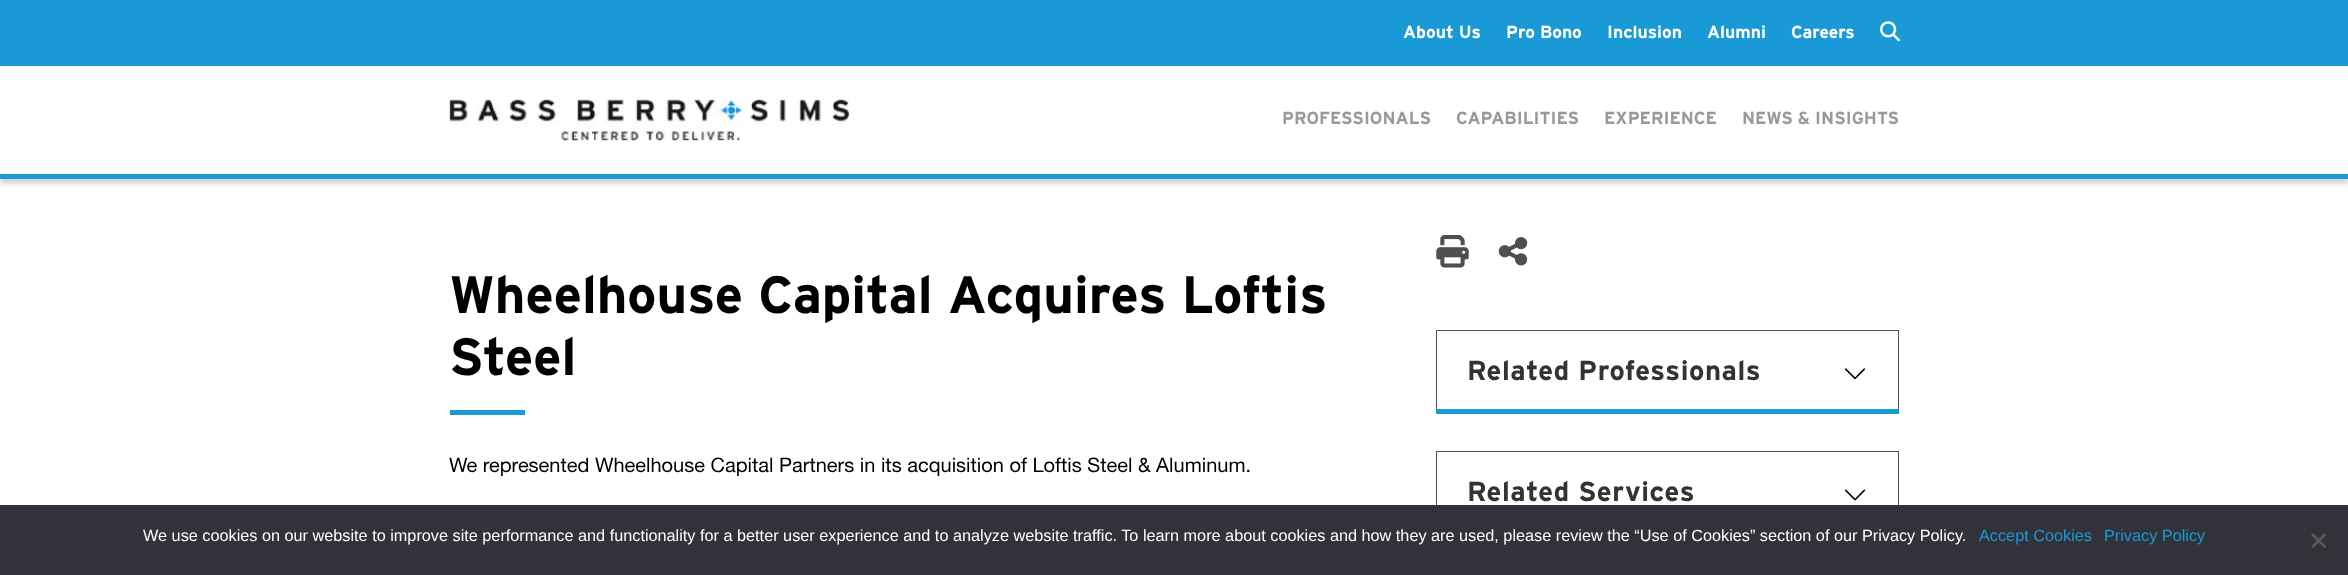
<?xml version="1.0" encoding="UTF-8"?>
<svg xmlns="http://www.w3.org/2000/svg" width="2348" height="575">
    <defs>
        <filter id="blur1" x="-50%" y="-200%" width="200%" height="500%"><feGaussianBlur stdDeviation="2.5"/></filter>
    </defs>
    <rect width="100%" height="100%" fill="#FFFFFF"/>
    <rect x="0" y="5" width="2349" height="179" fill="#000000" fill-opacity="0.16" filter="url(#blur1)"/>
    <rect x="0" y="66" width="2348" height="108" fill="#FFFFFF"/>
    <rect x="0" y="174" width="2348" height="5" fill="#199AD6"/>
    <rect x="0" y="0" width="2348" height="66" fill="#199AD6"/>
    <text x="1403" y="38" font-family="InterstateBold" font-size="17.5" font-weight="700" fill="#FFFFFF">About Us</text>
    <text x="1506" y="38" font-family="InterstateBold" font-size="17.5" font-weight="700" fill="#FFFFFF">Pro Bono</text>
    <text x="1607" y="38" font-family="InterstateBold" font-size="17.5" font-weight="700" fill="#FFFFFF">Inclusion</text>
    <text x="1707" y="38" font-family="InterstateBold" font-size="17.5" font-weight="700" fill="#FFFFFF">Alumni</text>
    <text x="1791" y="38" font-family="InterstateBold" font-size="17.5" font-weight="700" fill="#FFFFFF">Careers</text>
    <image x="1880" y="21" width="20" height="21" href="img_01.png"/>
    <image x="449" y="99" width="400" height="42" href="img_02.png"/>
    <text x="1282" y="124" font-family="InterstateBold" font-size="17.5" font-weight="700" fill="#999999">PROFESSIONALS</text>
    <text x="1456" y="124" font-family="InterstateBold" font-size="17.5" font-weight="700" fill="#999999">CAPABILITIES</text>
    <text x="1604" y="124" font-family="InterstateBold" font-size="17.5" font-weight="700" fill="#999999">EXPERIENCE</text>
    <text x="1742" y="124" font-family="InterstateBold" font-size="17.5" font-weight="700" fill="#999999">NEWS &amp; INSIGHTS</text>
    <text font-family="InterstateBold" font-size="52.5" font-weight="700" fill="#000000">
        <tspan x="449" y="313">Wheelhouse Capital Acquires Loftis</tspan>
        <tspan x="449" y="375">Steel</tspan>
    </text>
    <rect x="450" y="410" width="75" height="5" fill="#199AD6"/>
    <text x="449" y="472" font-family="Helvetica Neue" font-size="20" fill="#000000">We represented Wheelhouse Capital Partners in its acquisition of Loftis Steel &amp; Aluminum.</text>
    <image x="1436" y="235" width="33" height="33" href="img_03.png"/>
    <image x="1498" y="237" width="30" height="29" href="img_04.png"/>
    <rect x="1436" y="409" width="463" height="5" fill="#199AD6"/>
    <rect x="1436" y="330" width="463" height="1" fill="#525252"/>
    <rect x="1898" y="330" width="1" height="79" fill="#525252"/>
    <rect x="1436" y="330" width="1" height="79" fill="#525252"/>
    <text x="1467" y="380" font-family="InterstateBold" font-size="27.5" font-weight="700" letter-spacing="0.6" fill="#333333">Related Professionals</text>
    <image x="1844" y="368" width="22" height="12" href="img_05.png"/>
    <rect x="1436" y="451" width="463" height="1" fill="#525252"/>
    <rect x="1898" y="451" width="1" height="54" fill="#525252"/>
    <rect x="1436" y="451" width="1" height="54" fill="#525252"/>
    <text x="1467" y="501" font-family="InterstateBold" font-size="27.5" font-weight="700" letter-spacing="0.6" fill="#333333">Related Services</text>
    <image x="1844" y="489" width="22" height="12" href="img_06.png"/>
    <rect x="0" y="505" width="2348" height="70" fill="#32323A"/>
    <text x="143" y="541" font-family="Liberation Sans" font-size="16.25" fill="#FFFFFF">We use cookies on our website to improve site performance and functionality for a better user experience and to analyze website traffic. To learn more about cookies and how they are used, please review the “Use of Cookies” section of our Privacy Policy.</text>
    <text x="1979" y="541" font-family="Liberation Sans" font-size="16.25" fill="#199AD6">Accept Cookies</text>
    <text x="2104" y="541" font-family="Liberation Sans" font-size="16.25" fill="#199AD6">Privacy Policy</text>
    <path d="M 2324.5 533 L 2326.5 535 L 2313 548 L 2311 546.5 Z" fill="#59595D"/>
    <path d="M 2311 535 L 2313 533 L 2326.5 546.5 L 2324.5 548 Z" fill="#59595D"/>
</svg>
